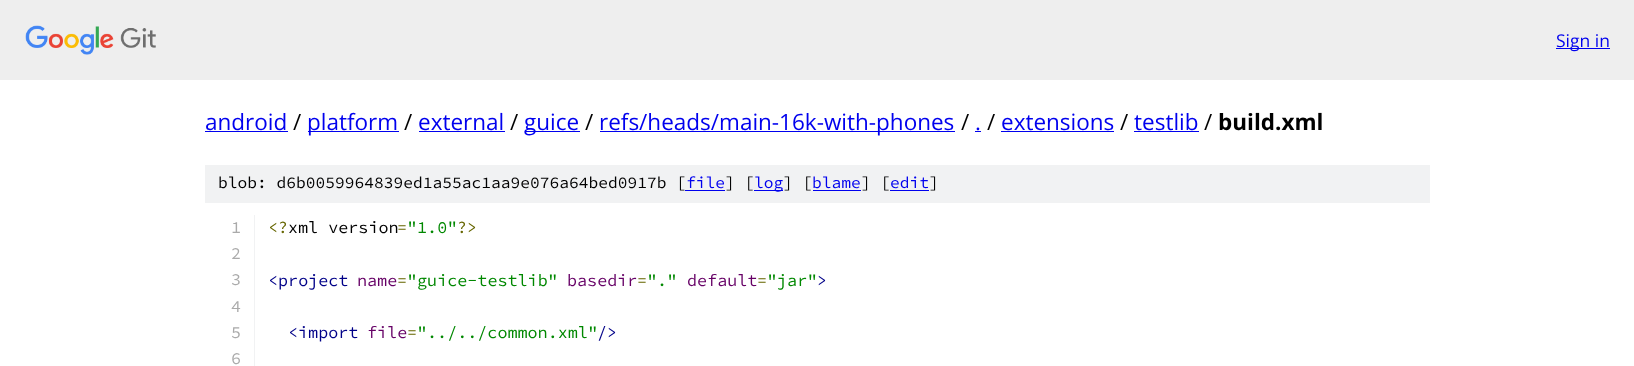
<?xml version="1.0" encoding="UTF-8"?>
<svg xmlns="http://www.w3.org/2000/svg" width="1634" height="366">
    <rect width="100%" height="100%" fill="#FFFFFF"/>
    <rect x="0" y="0" width="1634" height="80" fill="#EEEEEE"/>
    <image x="25" y="25" width="131" height="30" href="img_01.png"/>
    <rect x="1556" y="48" width="54" height="1" fill="#0000EE"/>
    <text x="1556" y="47" font-family="Open Sans" font-size="17.5" fill="#0000EE">Sign in</text>
    <text x="205" y="130" font-family="Open Sans" font-size="22.5" fill="#0000EE">android</text>
    <rect x="205" y="131" width="83" height="1" fill="#0000EE"/>
    <text x="293" y="130" font-family="Open Sans" font-size="22.5" fill="#000000">/</text>
    <rect x="308" y="131" width="91" height="1" fill="#0000EE"/>
    <text x="307" y="130" font-family="Open Sans" font-size="22.5" fill="#0000EE">platform</text>
    <text x="404" y="130" font-family="Open Sans" font-size="22.5" fill="#000000">/</text>
    <text x="418" y="130" font-family="Open Sans" font-size="22.5" fill="#0000EE">external</text>
    <rect x="419" y="131" width="86" height="1" fill="#0000EE"/>
    <text x="510" y="130" font-family="Open Sans" font-size="22.5" fill="#000000">/</text>
    <rect x="525" y="131" width="55" height="1" fill="#0000EE"/>
    <text x="524" y="130" font-family="Open Sans" font-size="22.5" fill="#0000EE">guice</text>
    <text x="585" y="130" font-family="Open Sans" font-size="22.5" fill="#000000">/</text>
    <rect x="600" y="131" width="355" height="1" fill="#0000EE"/>
    <text x="599" y="130" font-family="Open Sans" font-size="22.5" fill="#0000EE">refs/heads/main-16k-with-phones</text>
    <text x="961" y="130" font-family="Open Sans" font-size="22.5" fill="#000000">/</text>
    <text x="975" y="130" font-family="Open Sans" font-size="22.5" fill="#0000EE">.</text>
    <rect x="975" y="131" width="6" height="1" fill="#0000EE"/>
    <text x="987" y="130" font-family="Open Sans" font-size="22.5" fill="#000000">/</text>
    <text x="1001" y="130" font-family="Open Sans" font-size="22.5" fill="#0000EE">extensions</text>
    <rect x="1001" y="131" width="113" height="1" fill="#0000EE"/>
    <text x="1120" y="130" font-family="Open Sans" font-size="22.5" fill="#000000">/</text>
    <text x="1134" y="130" font-family="Open Sans" font-size="22.5" fill="#0000EE">testlib</text>
    <rect x="1134" y="131" width="65" height="1" fill="#0000EE"/>
    <text x="1204" y="130" font-family="Open Sans" font-size="22.5" fill="#000000">/</text>
    <text x="1218" y="130" font-family="Open Sans" font-size="22.5" font-weight="700" fill="#000000">build.xml</text>
    <rect x="205" y="165" width="1225" height="38" fill="#F1F2F3"/>
    <text x="218" y="188" font-family="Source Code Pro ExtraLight" font-size="16.25" font-weight="200" fill="#000000">blob: d6b0059964839ed1a55ac1aa9e076a64bed0917b [</text>
    <text x="686" y="188" font-family="Source Code Pro ExtraLight" font-size="16.25" font-weight="200" fill="#0000EE">file</text>
    <rect x="685" y="190" width="40" height="1" fill="#0000EE"/>
    <text x="725" y="188" font-family="Source Code Pro ExtraLight" font-size="16.25" font-weight="200" fill="#000000">] [</text>
    <rect x="754" y="190" width="29" height="1" fill="#0000EE"/>
    <text x="754" y="188" font-family="Source Code Pro ExtraLight" font-size="16.25" font-weight="200" fill="#0000EE">log</text>
    <text x="783" y="188" font-family="Source Code Pro ExtraLight" font-size="16.25" font-weight="200" fill="#000000">] [</text>
    <text x="812" y="188" font-family="Source Code Pro ExtraLight" font-size="16.25" font-weight="200" fill="#0000EE">blame</text>
    <rect x="813" y="190" width="48" height="1" fill="#0000EE"/>
    <text x="861" y="188" font-family="Source Code Pro ExtraLight" font-size="16.25" font-weight="200" fill="#000000">] [</text>
    <text x="890" y="188" font-family="Source Code Pro ExtraLight" font-size="16.25" font-weight="200" fill="#0000EE">edit</text>
    <rect x="890" y="190" width="39" height="1" fill="#0000EE"/>
    <text x="929" y="188" font-family="Source Code Pro ExtraLight" font-size="16.25" font-weight="200" fill="#000000">]</text>
    <rect x="254" y="215" width="1" height="151" fill="#F1F2F3"/>
    <text x="231" y="233" font-family="Source Code Pro ExtraLight" font-size="16.75" font-weight="200" fill="#AAAAAA">1</text>
    <text x="268" y="233" font-family="Source Code Pro ExtraLight" font-size="16.75" font-weight="200" fill="#666600">&lt;?</text>
    <text x="288" y="233" font-family="Source Code Pro ExtraLight" font-size="16.75" font-weight="200" fill="#000000">xml version</text>
    <text x="397" y="233" font-family="Source Code Pro ExtraLight" font-size="16.75" font-weight="200" fill="#666600">=</text>
    <text x="407" y="233" font-family="Source Code Pro ExtraLight" font-size="16.75" font-weight="200" fill="#008800">"1.0"</text>
    <text x="457" y="233" font-family="Source Code Pro ExtraLight" font-size="16.75" font-weight="200" fill="#666600">?&gt;</text>
    <text font-family="Source Code Pro ExtraLight" font-size="16.75" font-weight="200" fill="#AAAAAA">
        <tspan x="231" y="259">2</tspan>
        <tspan x="231" y="285">3</tspan>
    </text>
    <text x="268" y="286" font-family="Source Code Pro ExtraLight" font-size="16.75" font-weight="200" fill="#000088">&lt;project</text>
    <text x="357" y="286" font-family="Source Code Pro ExtraLight" font-size="16.75" font-weight="200" fill="#660066">name</text>
    <text x="397" y="286" font-family="Source Code Pro ExtraLight" font-size="16.75" font-weight="200" fill="#666600">=</text>
    <text x="407" y="286" font-family="Source Code Pro ExtraLight" font-size="16.75" font-weight="200" fill="#008800">"guice-testlib"</text>
    <text x="567" y="286" font-family="Source Code Pro ExtraLight" font-size="16.75" font-weight="200" fill="#660066">basedir</text>
    <text x="637" y="286" font-family="Source Code Pro ExtraLight" font-size="16.75" font-weight="200" fill="#666600">=</text>
    <text x="647" y="286" font-family="Source Code Pro ExtraLight" font-size="16.75" font-weight="200" fill="#008800">"."</text>
    <text x="687" y="286" font-family="Source Code Pro ExtraLight" font-size="16.75" font-weight="200" fill="#660066">default</text>
    <text x="757" y="286" font-family="Source Code Pro ExtraLight" font-size="16.75" font-weight="200" fill="#666600">=</text>
    <text x="767" y="286" font-family="Source Code Pro ExtraLight" font-size="16.75" font-weight="200" fill="#008800">"jar"</text>
    <text x="817" y="286" font-family="Source Code Pro ExtraLight" font-size="16.75" font-weight="200" fill="#000088">&gt;</text>
    <text font-family="Source Code Pro ExtraLight" font-size="16.75" font-weight="200" fill="#AAAAAA">
        <tspan x="231" y="312">4</tspan>
        <tspan x="231" y="338">5</tspan>
    </text>
    <text x="288" y="338" font-family="Source Code Pro ExtraLight" font-size="16.75" font-weight="200" fill="#000088">&lt;import</text>
    <text x="367" y="338" font-family="Source Code Pro ExtraLight" font-size="16.75" font-weight="200" fill="#660066">file</text>
    <text x="407" y="338" font-family="Source Code Pro ExtraLight" font-size="16.75" font-weight="200" fill="#666600">=</text>
    <text x="417" y="338" font-family="Source Code Pro ExtraLight" font-size="16.75" font-weight="200" fill="#008800">"../../common.xml"</text>
    <text x="597" y="338" font-family="Source Code Pro ExtraLight" font-size="16.75" font-weight="200" fill="#000088">/&gt;</text>
    <text x="231" y="364" font-family="Source Code Pro ExtraLight" font-size="16.75" font-weight="200" fill="#AAAAAA">6</text>
</svg>
